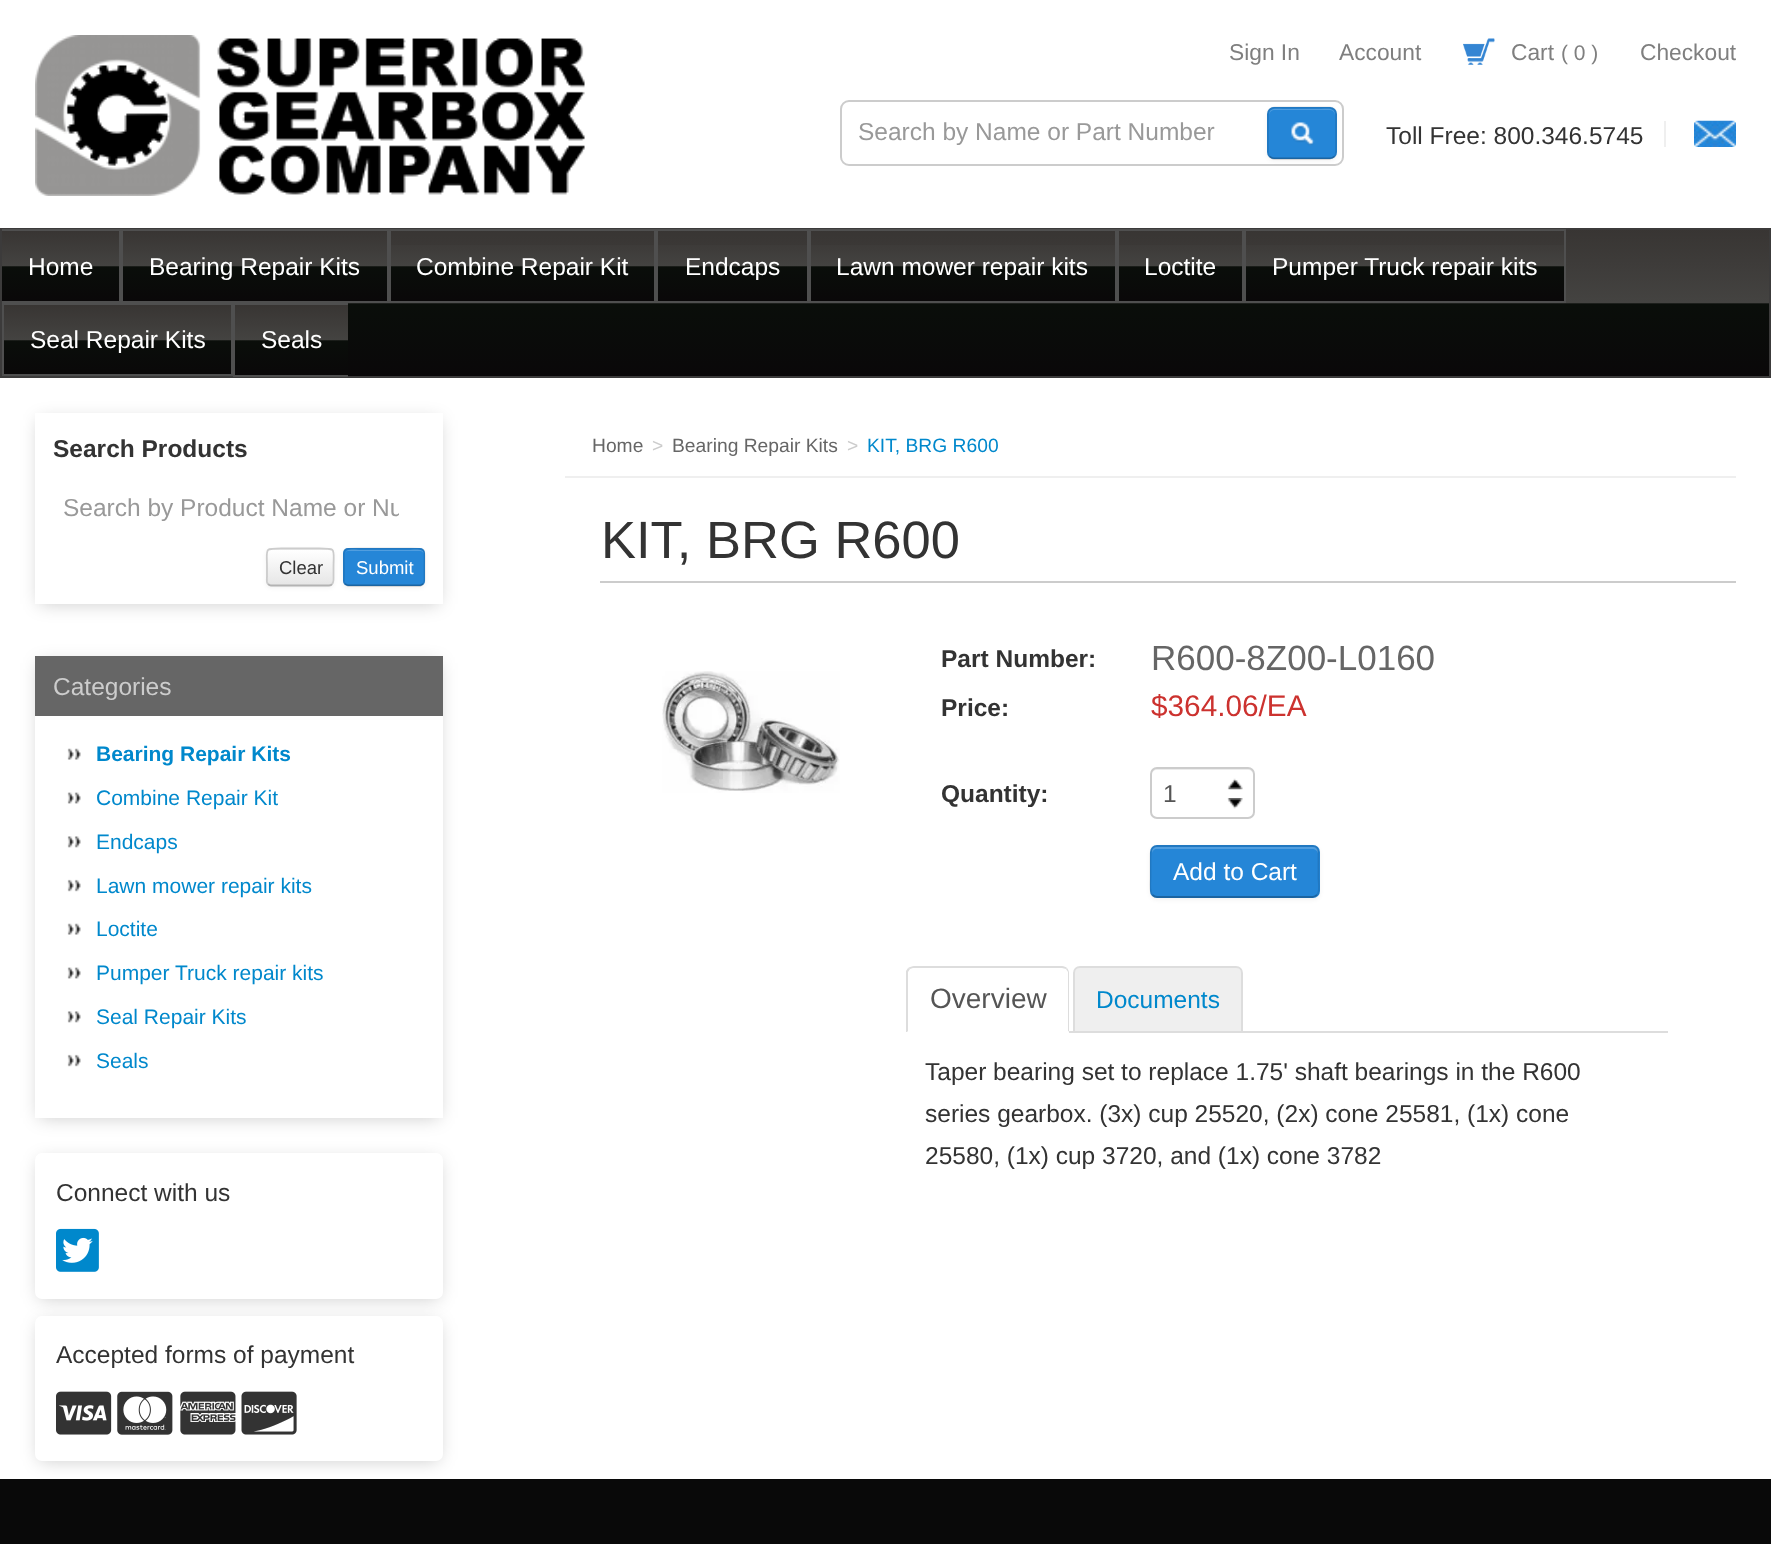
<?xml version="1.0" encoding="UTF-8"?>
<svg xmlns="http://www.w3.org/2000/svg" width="1771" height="1544">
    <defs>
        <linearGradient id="g1" gradientUnits="userSpaceOnUse" x1="886" y1="229" x2="886" y2="376"><stop offset="0" stop-color="#383533"/><stop offset="0.5" stop-color="#444341"/><stop offset="0.51" stop-color="#0A0E0A"/><stop offset="1" stop-color="#0A0809"/></linearGradient>
        <linearGradient id="g2" gradientUnits="userSpaceOnUse" x1="60" y1="231" x2="60" y2="301"><stop offset="0" stop-color="#383533"/><stop offset="0.5" stop-color="#444341"/><stop offset="0.51" stop-color="#0A0E0A"/><stop offset="1" stop-color="#0A0809"/></linearGradient>
        <linearGradient id="g3" gradientUnits="userSpaceOnUse" x1="255" y1="231" x2="255" y2="301"><stop offset="0" stop-color="#383533"/><stop offset="0.5" stop-color="#444341"/><stop offset="0.51" stop-color="#0A0E0A"/><stop offset="1" stop-color="#0A0809"/></linearGradient>
        <linearGradient id="g4" gradientUnits="userSpaceOnUse" x1="522" y1="231" x2="522" y2="301"><stop offset="0" stop-color="#383533"/><stop offset="0.5" stop-color="#444341"/><stop offset="0.51" stop-color="#0A0E0A"/><stop offset="1" stop-color="#0A0809"/></linearGradient>
        <linearGradient id="g5" gradientUnits="userSpaceOnUse" x1="732" y1="231" x2="732" y2="301"><stop offset="0" stop-color="#383533"/><stop offset="0.5" stop-color="#444341"/><stop offset="0.51" stop-color="#0A0E0A"/><stop offset="1" stop-color="#0A0809"/></linearGradient>
        <linearGradient id="g6" gradientUnits="userSpaceOnUse" x1="963" y1="231" x2="963" y2="301"><stop offset="0" stop-color="#383533"/><stop offset="0.5" stop-color="#444341"/><stop offset="0.51" stop-color="#0A0E0A"/><stop offset="1" stop-color="#0A0809"/></linearGradient>
        <linearGradient id="g7" gradientUnits="userSpaceOnUse" x1="1180" y1="231" x2="1180" y2="301"><stop offset="0" stop-color="#383533"/><stop offset="0.5" stop-color="#444341"/><stop offset="0.51" stop-color="#0A0E0A"/><stop offset="1" stop-color="#0A0809"/></linearGradient>
        <linearGradient id="g8" gradientUnits="userSpaceOnUse" x1="1405" y1="231" x2="1405" y2="301"><stop offset="0" stop-color="#383533"/><stop offset="0.5" stop-color="#444341"/><stop offset="0.51" stop-color="#0A0E0A"/><stop offset="1" stop-color="#0A0809"/></linearGradient>
        <linearGradient id="g9" gradientUnits="userSpaceOnUse" x1="117" y1="305" x2="117" y2="375"><stop offset="0" stop-color="#383533"/><stop offset="0.5" stop-color="#444341"/><stop offset="0.51" stop-color="#0A0E0A"/><stop offset="1" stop-color="#0A0809"/></linearGradient>
        <linearGradient id="g10" gradientUnits="userSpaceOnUse" x1="291" y1="305" x2="291" y2="375"><stop offset="0" stop-color="#383533"/><stop offset="0.5" stop-color="#444341"/><stop offset="0.51" stop-color="#0A0E0A"/><stop offset="1" stop-color="#0A0809"/></linearGradient>
        <filter id="blur1" x="-50%" y="-200%" width="200%" height="500%"><feGaussianBlur stdDeviation="2"/></filter>
        <clipPath id="clip1"><path d="M 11 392 H 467 V 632 H 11 Z M 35 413 H 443 V 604 H 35 Z" clip-rule="evenodd"/></clipPath>
        <filter id="blur2" x="-50%" y="-200%" width="200%" height="500%"><feGaussianBlur stdDeviation="9"/></filter>
        <clipPath id="clip2"><rect x="63" y="494" width="336" height="28"/></clipPath>
        <clipPath id="clip3"><rect x="266" y="548" width="68" height="38" rx="5"/></clipPath>
        <linearGradient id="g11" gradientUnits="userSpaceOnUse" x1="300" y1="550" x2="300" y2="585"><stop offset="0" stop-color="#FFFFFF"/><stop offset="1" stop-color="#E6E6E6"/></linearGradient>
        <clipPath id="clip4"><path d="M 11 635 H 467 V 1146 H 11 Z M 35 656 H 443 V 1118 H 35 Z" clip-rule="evenodd"/></clipPath>
    </defs>
    <rect width="100%" height="100%" fill="#FFFFFF"/>
    <image x="35" y="35" width="550" height="161" href="img_01.png"/>
    <text x="1229" y="60" font-family="Liberation Sans" font-size="22.75" fill="#7F7F7F">Sign In</text>
    <text x="1339" y="60" font-family="Liberation Sans" font-size="22.75" fill="#7F7F7F">Account</text>
    <image x="1463" y="38" width="32" height="27" href="img_02.png"/>
    <text x="1511" y="60" font-family="Liberation Sans" font-size="22.75" fill="#7F7F7F">Cart</text>
    <text x="1561" y="60" font-family="Liberation Sans" font-size="21" fill="#7F7F7F">( 0 )</text>
    <text x="1640" y="60" font-family="Liberation Sans" font-size="22.75" fill="#7F7F7F">Checkout</text>
    <rect x="348" y="230" width="1421" height="146" fill="url(#g1)"/>
    <rect x="1" y="229" width="1769" height="148" fill="none" stroke="#3C3B3B" stroke-width="2"/>
    <rect x="2" y="231" width="117" height="70" fill="url(#g2)"/>
    <rect x="2" y="229" width="119" height="2" fill="#4F4F4F"/>
    <rect x="119" y="229" width="2" height="74" fill="#4F4F4F"/>
    <rect x="2" y="301" width="119" height="2" fill="#4F4F4F"/>
    <text x="28" y="275" font-family="Liberation Sans" font-size="24.5" fill="#FFFFFF">Home</text>
    <rect x="123" y="231" width="264" height="70" fill="url(#g3)"/>
    <rect x="122" y="230" width="266" height="72" fill="none" stroke="#4F4F4F" stroke-width="2"/>
    <text x="149" y="275" font-family="Liberation Sans" font-size="24.5" fill="#FFFFFF">Bearing Repair Kits</text>
    <rect x="391" y="245" width="263" height="56" fill="url(#g4)"/>
    <rect x="390" y="230" width="265" height="72" fill="none" stroke="#4F4F4F" stroke-width="2"/>
    <text x="416" y="275" font-family="Liberation Sans" font-size="24.5" fill="#FFFFFF">Combine Repair Kit</text>
    <rect x="658" y="245" width="149" height="56" fill="url(#g5)"/>
    <rect x="657" y="230" width="151" height="72" fill="none" stroke="#4F4F4F" stroke-width="2"/>
    <text x="685" y="275" font-family="Liberation Sans" font-size="24.5" fill="#FFFFFF">Endcaps</text>
    <rect x="811" y="245" width="304" height="56" fill="url(#g6)"/>
    <rect x="810" y="230" width="306" height="72" fill="none" stroke="#4F4F4F" stroke-width="2"/>
    <text x="836" y="275" font-family="Liberation Sans" font-size="24.5" fill="#FFFFFF">Lawn mower repair kits</text>
    <rect x="1119" y="245" width="123" height="56" fill="url(#g7)"/>
    <rect x="1118" y="230" width="125" height="72" fill="none" stroke="#4F4F4F" stroke-width="2"/>
    <text x="1144" y="275" font-family="Liberation Sans" font-size="24.5" fill="#FFFFFF">Loctite</text>
    <rect x="1246" y="245" width="318" height="56" fill="url(#g8)"/>
    <rect x="1245" y="230" width="320" height="72" fill="none" stroke="#4F4F4F" stroke-width="2"/>
    <text x="1272" y="275" font-family="Liberation Sans" font-size="24.5" fill="#FFFFFF">Pumper Truck repair kits</text>
    <rect x="4" y="305" width="227" height="69" fill="url(#g9)"/>
    <rect x="3" y="304" width="229" height="71" fill="none" stroke="#4F4F4F" stroke-width="2"/>
    <text x="30" y="348" font-family="Liberation Sans" font-size="24.5" fill="#FFFFFF">Seal Repair Kits</text>
    <rect x="235" y="305" width="113" height="70" fill="url(#g10)"/>
    <rect x="233" y="303" width="115" height="2" fill="#4F4F4F"/>
    <rect x="233" y="375" width="115" height="2" fill="#4F4F4F"/>
    <rect x="233" y="303" width="2" height="73" fill="#4F4F4F"/>
    <text x="261" y="348" font-family="Liberation Sans" font-size="24.5" fill="#FFFFFF">Seals</text>
    <rect x="841" y="101" width="502" height="64" rx="8" fill="none" stroke="#CCCCCC" stroke-width="2"/>
    <text x="858" y="140" font-family="Liberation Sans" font-size="24.5" fill="#999999">Search by Name or Part Number</text>
    <rect x="1267" y="109" width="70" height="52" rx="7" fill="#000000" fill-opacity="0.05" filter="url(#blur1)"/>
    <rect x="1267" y="107" width="70" height="52" rx="7" fill="#2586D7"/>
    <path d="M 1274 110 H 1330 C 1333 110 1335 113 1335 116 C 1335 107 1328 109 1321 109 H 1283 C 1276 109 1269 107 1269 116 C 1269 113 1271 110 1274 110 Z" fill="#519EDF"/>
    <path d="M 1334.5 156.5 C 1333 157.5 1331.5 158.5 1330 158.5 H 1274 C 1272.5 158.5 1271 157.5 1269.5 156.5" fill="none" stroke="#000000" stroke-opacity="0.25" stroke-width="1.8"/>
    <path d="M 1269.5 156.5 C 1268.5 155.5 1268 154 1268 152 V 114 C 1268 112 1268.5 110.5 1269.5 109.5 C 1271 108.5 1272.5 107.5 1274 107.5 H 1330 C 1331.5 107.5 1333 108.5 1334.5 109.5 C 1335.5 110.5 1336 112 1336 114 V 152 C 1336 154 1335.5 155.5 1334.5 156.5" fill="none" stroke="#000000" stroke-opacity="0.1" stroke-width="1.8"/>
    <image x="1291" y="122" width="24" height="24" href="img_03.png"/>
    <text x="1386" y="144" font-family="Liberation Sans" font-size="24.5" fill="#333333">Toll Free: 800.346.5745</text>
    <rect x="1664" y="121" width="2" height="26" fill="#EFEFEF"/>
    <image x="1694" y="120" width="42" height="27" href="img_04.png"/>
    <g clip-path="url(#clip1)">
        <rect x="39" y="420" width="400" height="184" fill="#000000" fill-opacity="0.2" filter="url(#blur2)"/>
    </g>
    <text x="53" y="457" font-family="Liberation Sans" font-size="24.5" font-weight="700" fill="#333333">Search Products</text>
    <g clip-path="url(#clip2)">
        <text x="63" y="516" font-family="Liberation Sans" font-size="24.5" fill="#999999">Search by Product Name or Nu</text>
    </g>
    <rect x="266" y="550" width="68" height="38" rx="5" fill="#000000" fill-opacity="0.05" filter="url(#blur1)"/>
    <rect x="266" y="548" width="68" height="38" rx="5" fill="#F5F5F5"/>
    <g clip-path="url(#clip3)">
        <rect x="266" y="550" width="68" height="35" fill="url(#g11)"/>
    </g>
    <path d="M 271 551 H 319 C 334 551 332 550 332 564 V 584 C 334 581 333 571 333 568 C 333 550 337 550 320 550 H 272 C 270 550 269 551 268 552 V 555 C 268 553 269 551 271 551 Z" fill="#FFFFFF" fill-opacity="0.2"/>
    <path d="M 332 584 C 331.5 585 330 585.5 329 585.5 H 271 C 270 585.5 269 585 268 584" fill="none" stroke="#B3B3B3" stroke-width="1.8"/>
    <path d="M 268 584 C 266 582 267 578.5 267 576.5 V 567 C 267 548.5 263.5 548.5 281 548.5 H 319.5 C 337 548.5 333.5 548.5 333.5 567 V 576.5 C 333.5 578.5 334 582 332 584" fill="none" stroke="#CCCCCC" stroke-width="1.8"/>
    <text x="279" y="574" font-family="Liberation Sans" font-size="18.5" fill="#333333">Clear</text>
    <rect x="343" y="550" width="82" height="38" rx="5" fill="#000000" fill-opacity="0.05" filter="url(#blur1)"/>
    <rect x="343" y="548" width="82" height="38" rx="5" fill="#2586D7"/>
    <path d="M 348 551 H 420 C 422 551 424 553 424 555 C 424 547 413 550 408 550 H 361 C 356 550 345 547 345 555 C 345 553 346 551 348 551 Z" fill="#519EDF"/>
    <path d="M 423 584 L 420.5 585.5 H 348 L 345 584" fill="none" stroke="#000000" stroke-opacity="0.25" stroke-width="1.8"/>
    <path d="M 345 584 C 343 582 344 578.5 344 576.5 V 567 C 344 547 340.5 548.5 360 548.5 H 408 C 427.5 548.5 424.5 547 424.5 567 V 576.5 C 424.5 578.5 425 582 423 584" fill="none" stroke="#000000" stroke-opacity="0.1" stroke-width="1.8"/>
    <text x="356" y="574" font-family="Liberation Sans" font-size="18.5" fill="#FFFFFF">Submit</text>
    <g clip-path="url(#clip4)">
        <rect x="39" y="663" width="400" height="455" fill="#000000" fill-opacity="0.2" filter="url(#blur2)"/>
    </g>
    <rect x="35" y="656" width="408" height="60" fill="#666666"/>
    <text x="53" y="695" font-family="Liberation Sans" font-size="24.5" fill="#CCCCCC">Categories</text>
    <image x="67" y="748" width="14" height="12" href="img_05.png"/>
    <text x="96" y="761" font-family="Liberation Sans" font-size="21" font-weight="700" fill="#0088CC">Bearing Repair Kits</text>
    <image x="67" y="792" width="14" height="12" href="img_06.png"/>
    <text x="96" y="805" font-family="Liberation Sans" font-size="21" fill="#0088CC">Combine Repair Kit</text>
    <image x="67" y="836" width="14" height="12" href="img_07.png"/>
    <text x="96" y="849" font-family="Liberation Sans" font-size="21" fill="#0088CC">Endcaps</text>
    <image x="67" y="879" width="14" height="13" href="img_08.png"/>
    <text x="96" y="893" font-family="Liberation Sans" font-size="21" fill="#0088CC">Lawn mower repair kits</text>
    <image x="67" y="923" width="14" height="12" href="img_05.png"/>
    <text x="96" y="936" font-family="Liberation Sans" font-size="21" fill="#0088CC">Loctite</text>
    <image x="67" y="967" width="14" height="12" href="img_06.png"/>
    <text x="96" y="980" font-family="Liberation Sans" font-size="21" fill="#0088CC">Pumper Truck repair kits</text>
    <image x="67" y="1011" width="14" height="12" href="img_07.png"/>
    <text x="96" y="1024" font-family="Liberation Sans" font-size="21" fill="#0088CC">Seal Repair Kits</text>
    <image x="67" y="1054" width="14" height="13" href="img_08.png"/>
    <text x="96" y="1068" font-family="Liberation Sans" font-size="21" fill="#0088CC">Seals</text>
    <rect x="39" y="1160" width="400" height="139" rx="4" fill="#000000" fill-opacity="0.2" filter="url(#blur2)"/>
    <rect x="35" y="1153" width="408" height="146" rx="7" fill="#FFFFFF"/>
    <text x="56" y="1201" font-family="Liberation Sans" font-size="24.5" fill="#333333">Connect with us</text>
    <image x="56" y="1228" width="43" height="44" href="img_09.png"/>
    <rect x="39" y="1323" width="400" height="138" rx="4" fill="#000000" fill-opacity="0.2" filter="url(#blur2)"/>
    <rect x="35" y="1316" width="408" height="145" rx="7" fill="#FFFFFF"/>
    <text x="56" y="1363" font-family="Liberation Sans" font-size="24.5" fill="#333333">Accepted forms of payment</text>
    <image x="56" y="1391" width="56" height="44" href="img_10.png"/>
    <image x="117" y="1391" width="56" height="44" href="img_11.png"/>
    <image x="180" y="1391" width="56" height="44" href="img_12.png"/>
    <image x="241" y="1391" width="56" height="44" href="img_13.png"/>
    <rect x="565" y="476" width="1171" height="2" fill="#EFEFEF"/>
    <text x="592" y="452" font-family="Liberation Sans" font-size="19.25" fill="#666666">Home</text>
    <text x="652" y="452" font-family="Liberation Sans" font-size="19.25" fill="#CCCCCC">&gt;</text>
    <text x="672" y="452" font-family="Liberation Sans" font-size="19.25" fill="#666666">Bearing Repair Kits</text>
    <text x="847" y="452" font-family="Liberation Sans" font-size="19.25" fill="#CCCCCC">&gt;</text>
    <text x="867" y="452" font-family="Liberation Sans" font-size="19.25" fill="#0088CC">KIT, BRG R600</text>
    <rect x="600" y="581" width="1136" height="2" fill="#CCCCCC"/>
    <text x="601" y="558" font-family="Liberation Sans" font-size="52.5" fill="#333333">KIT, BRG R600</text>
    <image x="662" y="671" width="178" height="122" href="img_14.png"/>
    <text x="941" y="667" font-family="Liberation Sans" font-size="24.5" font-weight="700" fill="#333333">Part Number:</text>
    <text x="1151" y="670" font-family="Liberation Sans" font-size="35" fill="#666666">R600-8Z00-L0160</text>
    <text x="941" y="716" font-family="Liberation Sans" font-size="24.5" font-weight="700" fill="#333333">Price:</text>
    <text x="1151" y="716" font-family="Liberation Sans" font-size="29.75" fill="#CC322F">$364.06/EA</text>
    <text x="941" y="802" font-family="Liberation Sans" font-size="24.5" font-weight="700" fill="#333333">Quantity:</text>
    <path d="M 1157 770 H 1248 C 1251 770 1253 772 1253 775 C 1253 764 1241 768 1233 768 H 1172 C 1164 768 1152 764 1152 775 C 1152 772 1154 770 1157 770 Z" fill="#ECECEC"/>
    <rect x="1151" y="768" width="103" height="50" rx="6" fill="none" stroke="#CCCCCC" stroke-width="2"/>
    <text x="1163" y="802" font-family="Liberation Sans" font-size="24.5" fill="#555555">1</text>
    <image x="1227" y="778" width="16" height="12" href="img_15.png"/>
    <image x="1227" y="798" width="16" height="11" href="img_16.png"/>
    <rect x="1150" y="847" width="170" height="53" rx="7" fill="#000000" fill-opacity="0.05" filter="url(#blur1)"/>
    <rect x="1150" y="845" width="170" height="53" rx="7" fill="#2586D7"/>
    <path d="M 1157 849 H 1312 C 1315 849 1318 851 1318 854 V 852 C 1318 849 1316 847 1313 847 H 1157 C 1154 847 1152 849 1152 852 V 854 C 1152 851 1154 849 1157 849 Z" fill="#519EDF"/>
    <path d="M 1317 895 C 1315.5 896 1314 897 1312.5 897 H 1157 C 1155 897 1153.5 896 1152.5 895" fill="none" stroke="#000000" stroke-opacity="0.25" stroke-width="1.8"/>
    <path d="M 1152.5 895 C 1149 891.5 1150.5 882 1150.5 878 V 858.5 C 1150.5 854 1150 846 1157 846 H 1312.5 C 1319.5 846 1318.5 854 1318.5 858.5 V 878 C 1318.5 882 1320.5 891.5 1317 895" fill="none" stroke="#000000" stroke-opacity="0.1" stroke-width="1.8"/>
    <text x="1173" y="880" font-family="Liberation Sans" font-size="24.5" fill="#FFFFFF">Add to Cart</text>
    <rect x="1069" y="1031" width="599" height="2" fill="#DDDDDD"/>
    <path d="M 914 966 C 912 966 910 967 908 968 L 910 969 L 913 968 H 1062 L 1066 969 L 1067 968 C 1066 967 1064 966 1062 966 Z" fill="#DDDDDD"/>
    <path d="M 1067 968 C 1068 969 1069 971 1069 973 V 1032 L 1068 1031 V 972 L 1066 969 Z" fill="#DDDDDD"/>
    <path d="M 1069 1032 H 907 L 908 1031 H 1068 Z" fill="#FFFFFF"/>
    <path d="M 906 971 L 908 968 L 910 969 L 908 972 V 1031 L 907 1032 H 906 Z" fill="#DDDDDD"/>
    <text x="930" y="1008" font-family="Liberation Sans" font-size="28" fill="#555555">Overview</text>
    <path d="M 1080 967 H 1236 C 1239.5 967 1242 969.5 1242 973 V 1032 H 1074 V 973 C 1074 969.5 1076.5 967 1080 967 Z" fill="#EFEFEF" stroke="#DDDDDD" stroke-width="2"/>
    <text x="1096" y="1008" font-family="Liberation Sans" font-size="24.5" fill="#0088CC">Documents</text>
    <text font-family="Liberation Sans" font-size="24.5" fill="#333333">
        <tspan x="925" y="1080">Taper bearing set to replace 1.75' shaft bearings in the R600</tspan>
        <tspan x="925" y="1122">series gearbox. (3x) cup 25520, (2x) cone 25581, (1x) cone</tspan>
        <tspan x="925" y="1164">25580, (1x) cup 3720, and (1x) cone 3782</tspan>
    </text>
    <rect x="0" y="1479" width="1771" height="65" fill="#090909"/>
</svg>
